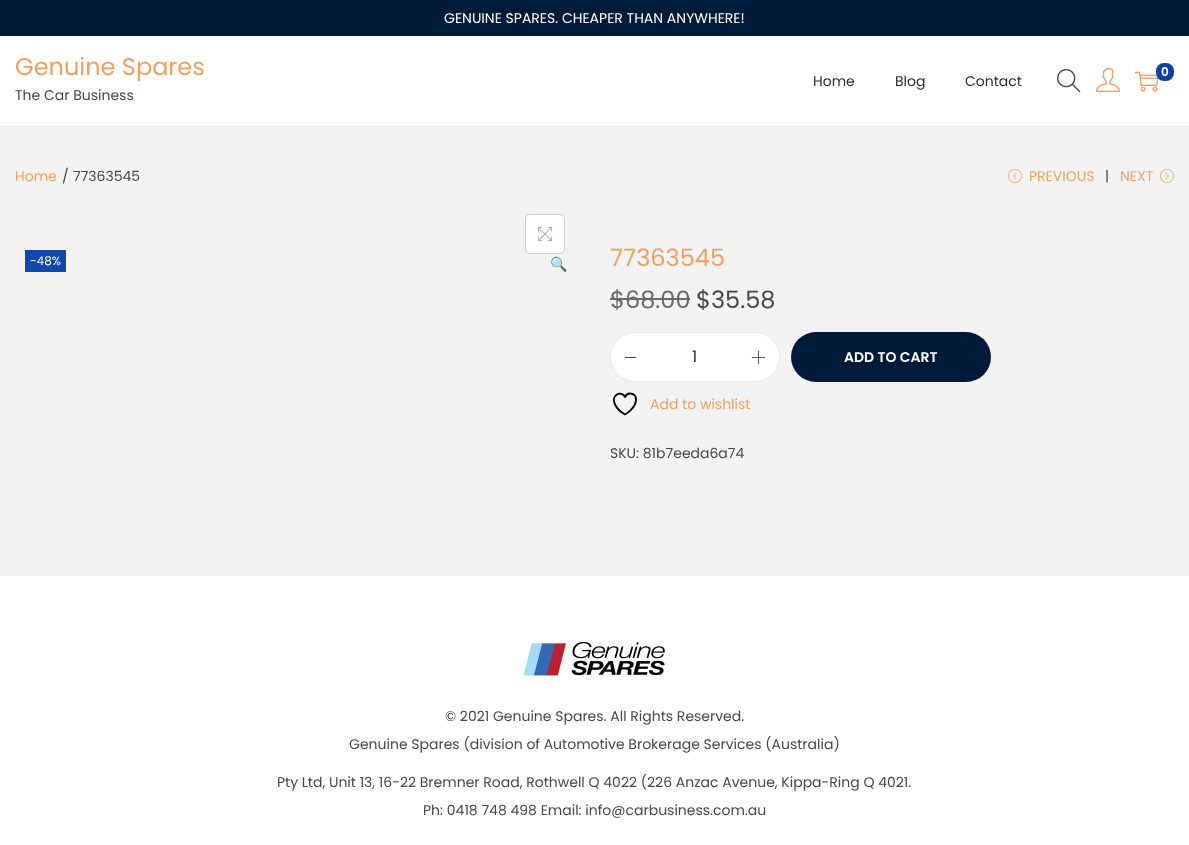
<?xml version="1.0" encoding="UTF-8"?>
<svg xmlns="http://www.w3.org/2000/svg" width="1189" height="845">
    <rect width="100%" height="100%" fill="#FFFFFF"/>
    <rect x="0" y="0" width="1189" height="36" fill="#001B39"/>
    <text x="444" y="23" font-family="Poppins" font-size="14" fill="#FFFFFF">GENUINE SPARES. CHEAPER THAN ANYWHERE!</text>
    <rect x="0" y="126" width="1189" height="1" fill="#EAEAEA"/>
    <text x="15" y="75" font-family="Poppins" font-size="24" fill="#F0A161">Genuine Spares</text>
    <text x="15" y="100" font-family="Poppins" font-size="14" fill="#474747">The Car Business</text>
    <image x="1057" y="69" width="24" height="24" href="img_01.png"/>
    <image x="1096" y="68" width="24" height="24" href="img_02.png"/>
    <image x="1135" y="71" width="24" height="21" href="img_03.png"/>
    <rect x="1156" y="63" width="18" height="18" rx="8" fill="#1140A2"/>
    <text x="1161" y="76" font-family="Poppins" font-size="12" font-weight="600" fill="#FFFFFF">0</text>
    <text x="813" y="86" font-family="Poppins" font-size="14" fill="#2B2B2B">Home</text>
    <text x="895" y="86" font-family="Poppins" font-size="14" fill="#2B2B2B">Blog</text>
    <text x="965" y="86" font-family="Poppins" font-size="14" fill="#2B2B2B">Contact</text>
    <rect x="0" y="127" width="1189" height="449" fill="#F3F3F3"/>
    <text x="15" y="181" font-family="Poppins" font-size="14" fill="#F0A161">Home</text>
    <text x="62" y="181" font-family="Poppins" font-size="14" fill="#474747">/</text>
    <text x="73" y="181" font-family="Poppins" font-size="14" fill="#474747">77363545</text>
    <image x="1008" y="169" width="14" height="14" href="img_04.png"/>
    <text x="1029" y="181" font-family="Poppins" font-size="14" fill="#F0A161">PREVIOUS</text>
    <text x="1105" y="181" font-family="Poppins" font-size="14" fill="#474747">|</text>
    <text x="1120" y="181" font-family="Poppins" font-size="14" fill="#F0A161">NEXT</text>
    <image x="1160" y="169" width="14" height="14" href="img_05.png"/>
    <rect x="525.5" y="214.5" width="39" height="39" rx="4.5" fill="#FFFFFF" stroke="#CCCCCC"/>
    <image x="537" y="226" width="16" height="16" href="img_06.png"/>
    <rect x="25" y="250" width="41" height="22" fill="#1346AF"/>
    <text x="30" y="265" font-family="Poppins" font-size="12" fill="#FFFFFF">-48%</text>
    <text x="550" y="269" font-family="Noto Color Emoji" font-size="14" fill="#F0A161">🔍</text>
    <text x="610" y="266" font-family="Poppins" font-size="24" fill="#F0A161">77363545</text>
    <text x="610" y="308" font-family="Poppins" font-size="24" fill="#696969">$68.00</text>
    <rect x="610" y="298" width="80" height="2" fill="#696969"/>
    <text x="696" y="308" font-family="Poppins" font-size="24" fill="#474747">$35.58</text>
    <rect x="610.5" y="332.5" width="169" height="49" rx="24.5" fill="#FFFFFF" stroke="#E8E8E8"/>
    <rect x="625" y="357" width="11" height="1" fill="#474747"/>
    <text x="692" y="362" font-family="Poppins" font-size="16" fill="#2B2B2B">1</text>
    <image x="751" y="350" width="15" height="15" href="img_07.png"/>
    <rect x="791" y="332" width="200" height="50" rx="25" fill="#001B39"/>
    <text x="844" y="362" font-family="Poppins" font-size="14" font-weight="600" fill="#FFFFFF">ADD TO CART</text>
    <path d="M 636 399.5 C 636 393 627.5 391.5 625 397 C 622 390 609.5 394.5 615.5 405.5 C 617.5 409 621.5 412.5 625 414.5 C 625 414.5 636 408.5 636 399.5 Z" fill="none" stroke="#000000" stroke-width="1.9" stroke-linecap="round" stroke-linejoin="round"/>
    <text x="650" y="409" font-family="Poppins" font-size="14" fill="#F0A161">Add to wishlist</text>
    <text x="610" y="458" font-family="Poppins" font-size="14" fill="#474747">SKU: 81b7eeda6a74</text>
    <image x="520" y="641" width="148" height="41" href="img_08.png"/>
    <text x="445" y="721" font-family="Poppins" font-size="14" fill="#474747">© 2021 Genuine Spares. All Rights Reserved.</text>
    <text x="349" y="749" font-family="Poppins" font-size="14" fill="#474747">Genuine Spares (division of Automotive Brokerage Services (Australia)</text>
    <text x="277" y="787" font-family="Poppins" font-size="14" fill="#474747">Pty Ltd, Unit 13, 16-22 Bremner Road, Rothwell Q 4022 (226 Anzac Avenue, Kippa-Ring Q 4021.</text>
    <text x="423" y="815" font-family="Poppins" font-size="14" fill="#474747">Ph: 0418 748 498 Email: info@carbusiness.com.au</text>
</svg>
